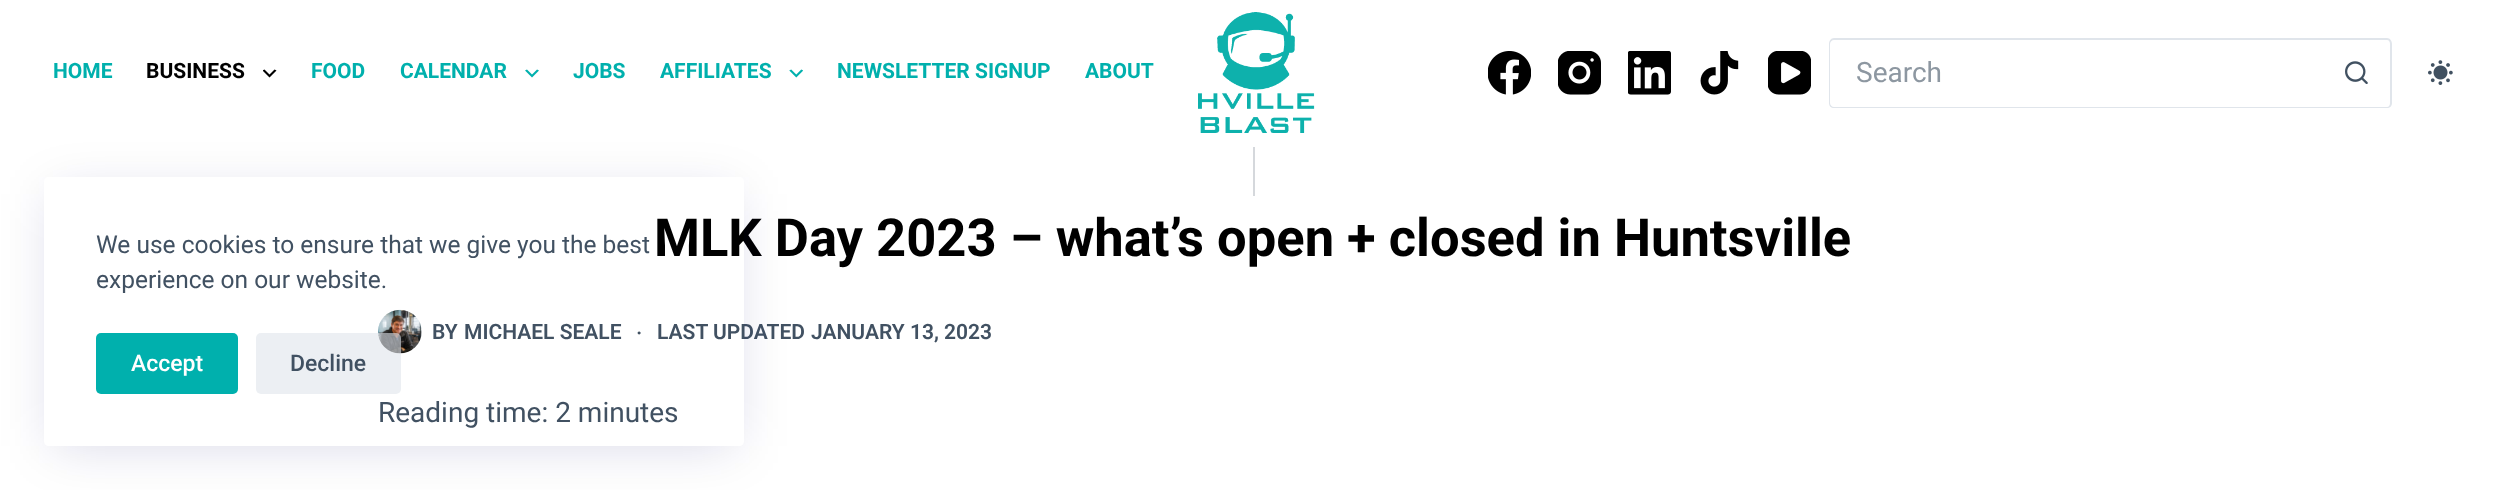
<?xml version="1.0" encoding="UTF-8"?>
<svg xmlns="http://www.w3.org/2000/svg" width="2505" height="490">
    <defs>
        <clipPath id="clip1"><path d="M 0 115 H 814 V 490 H 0 Z M 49 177 H 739 C 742 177 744 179 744 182 V 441 C 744 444 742 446 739 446 H 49 C 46 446 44 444 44 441 V 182 C 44 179 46 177 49 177 Z" clip-rule="evenodd"/></clipPath>
        <filter id="blur1" x="-50%" y="-200%" width="200%" height="500%"><feGaussianBlur stdDeviation="26"/></filter>
    </defs>
    <rect width="100%" height="100%" fill="#FFFFFF"/>
    <text x="53" y="78" font-family="Roboto" font-size="21" font-weight="700" fill="#00B0AD">HOME</text>
    <text x="146" y="78" font-family="Roboto" font-size="21" font-weight="700" fill="#000000">BUSINESS</text>
    <image x="263" y="69" width="14" height="9" href="img_01.png"/>
    <text x="311" y="78" font-family="Roboto" font-size="21" font-weight="700" fill="#00B0AD">FOOD</text>
    <text x="400" y="78" font-family="Roboto" font-size="21" font-weight="700" fill="#00B0AD">CALENDAR</text>
    <image x="525" y="69" width="14" height="9" href="img_02.png"/>
    <text x="573" y="78" font-family="Roboto" font-size="21" font-weight="700" fill="#00B0AD">JOBS</text>
    <text x="660" y="78" font-family="Roboto" font-size="21" font-weight="700" fill="#00B0AD">AFFILIATES</text>
    <image x="789" y="69" width="14" height="9" href="img_03.png"/>
    <text x="837" y="78" font-family="Roboto" font-size="21" font-weight="700" fill="#00B0AD">NEWSLETTER SIGNUP</text>
    <text x="1085" y="78" font-family="Roboto" font-size="21" font-weight="700" fill="#00B0AD">ABOUT</text>
    <image x="1198" y="12" width="117" height="121" href="img_04.png"/>
    <image x="1488" y="51" width="43" height="44" href="img_05.png"/>
    <image x="1558" y="51" width="43" height="44" href="img_06.png"/>
    <image x="1628" y="51" width="43" height="44" href="img_07.png"/>
    <image x="1700" y="51" width="39" height="44" href="img_08.png"/>
    <image x="1768" y="51" width="43" height="44" href="img_09.png"/>
    <path d="M 1834 38 H 2322 V 108 H 1834 C 1831 108 1829 106 1829 103 V 44 C 1829 41 1831 38 1834 38 Z M 1834 40 H 2322 V 107 H 1834 C 1832 107 1830 105 1830 103 V 44 C 1830 42 1832 40 1834 40 Z" fill="#E0E5EB" fill-rule="evenodd"/>
    <text x="1856" y="82" font-family="Roboto" font-size="28" fill="#8D97A1">Search</text>
    <path d="M 2322 38 H 2387 C 2390 38 2392 41 2392 44 V 103 C 2392 106 2390 108 2387 108 H 2322 Z M 2322 40 H 2387 C 2389 40 2390 42 2390 44 V 103 C 2390 105 2389 107 2387 107 H 2322 Z" fill="#E0E5EB" fill-rule="evenodd"/>
    <image x="2345" y="61" width="23" height="23" href="img_10.png"/>
    <image x="2428" y="60" width="25" height="25" href="img_11.png"/>
    <rect x="1253" y="147" width="2" height="49" fill="#D5D8DC"/>
    <text x="654" y="256" font-family="Roboto" font-size="52.5" font-weight="700" fill="#000000">MLK Day 2023 – what’s open + closed in Huntsville</text>
    <image x="378" y="309" width="44" height="45" href="img_12.png"/>
    <text x="432" y="339" font-family="Roboto" font-size="21" font-weight="600" fill="#415162">BY</text>
    <text x="464" y="339" font-family="Roboto" font-size="21" font-weight="600" fill="#415162">MICHAEL SEALE</text>
    <text x="637" y="335" font-family="Liberation Sans" font-size="7" font-weight="700" fill="#415162">●</text>
    <text x="657" y="339" font-family="Roboto" font-size="21" font-weight="600" fill="#415162">LAST UPDATED</text>
    <text x="811" y="339" font-family="Roboto" font-size="21" font-weight="600" fill="#415162">JANUARY 13, 2023</text>
    <text x="378" y="422" font-family="Roboto" font-size="28" fill="#415162">Reading time: 2 minutes</text>
    <g clip-path="url(#clip1)">
        <rect x="53" y="194" width="682" height="252" fill="#223865" fill-opacity="0.15" filter="url(#blur1)"/>
    </g>
    <text font-family="Roboto" font-size="24.5" fill="#415162">
        <tspan x="96" y="253">We use cookies to ensure that we give you the best</tspan>
        <tspan x="96" y="288">experience on our website.</tspan>
    </text>
    <rect x="96" y="333" width="142" height="61" rx="5" fill="#00B0AD"/>
    <text x="131" y="371" font-family="Roboto" font-size="23" font-weight="500" fill="#FFFFFF">Accept</text>
    <rect x="256" y="333" width="145" height="61" rx="5" fill="#E0E5EB" fill-opacity="0.6"/>
    <text x="290" y="371" font-family="Roboto" font-size="23" font-weight="500" fill="#415162">Decline</text>
</svg>
